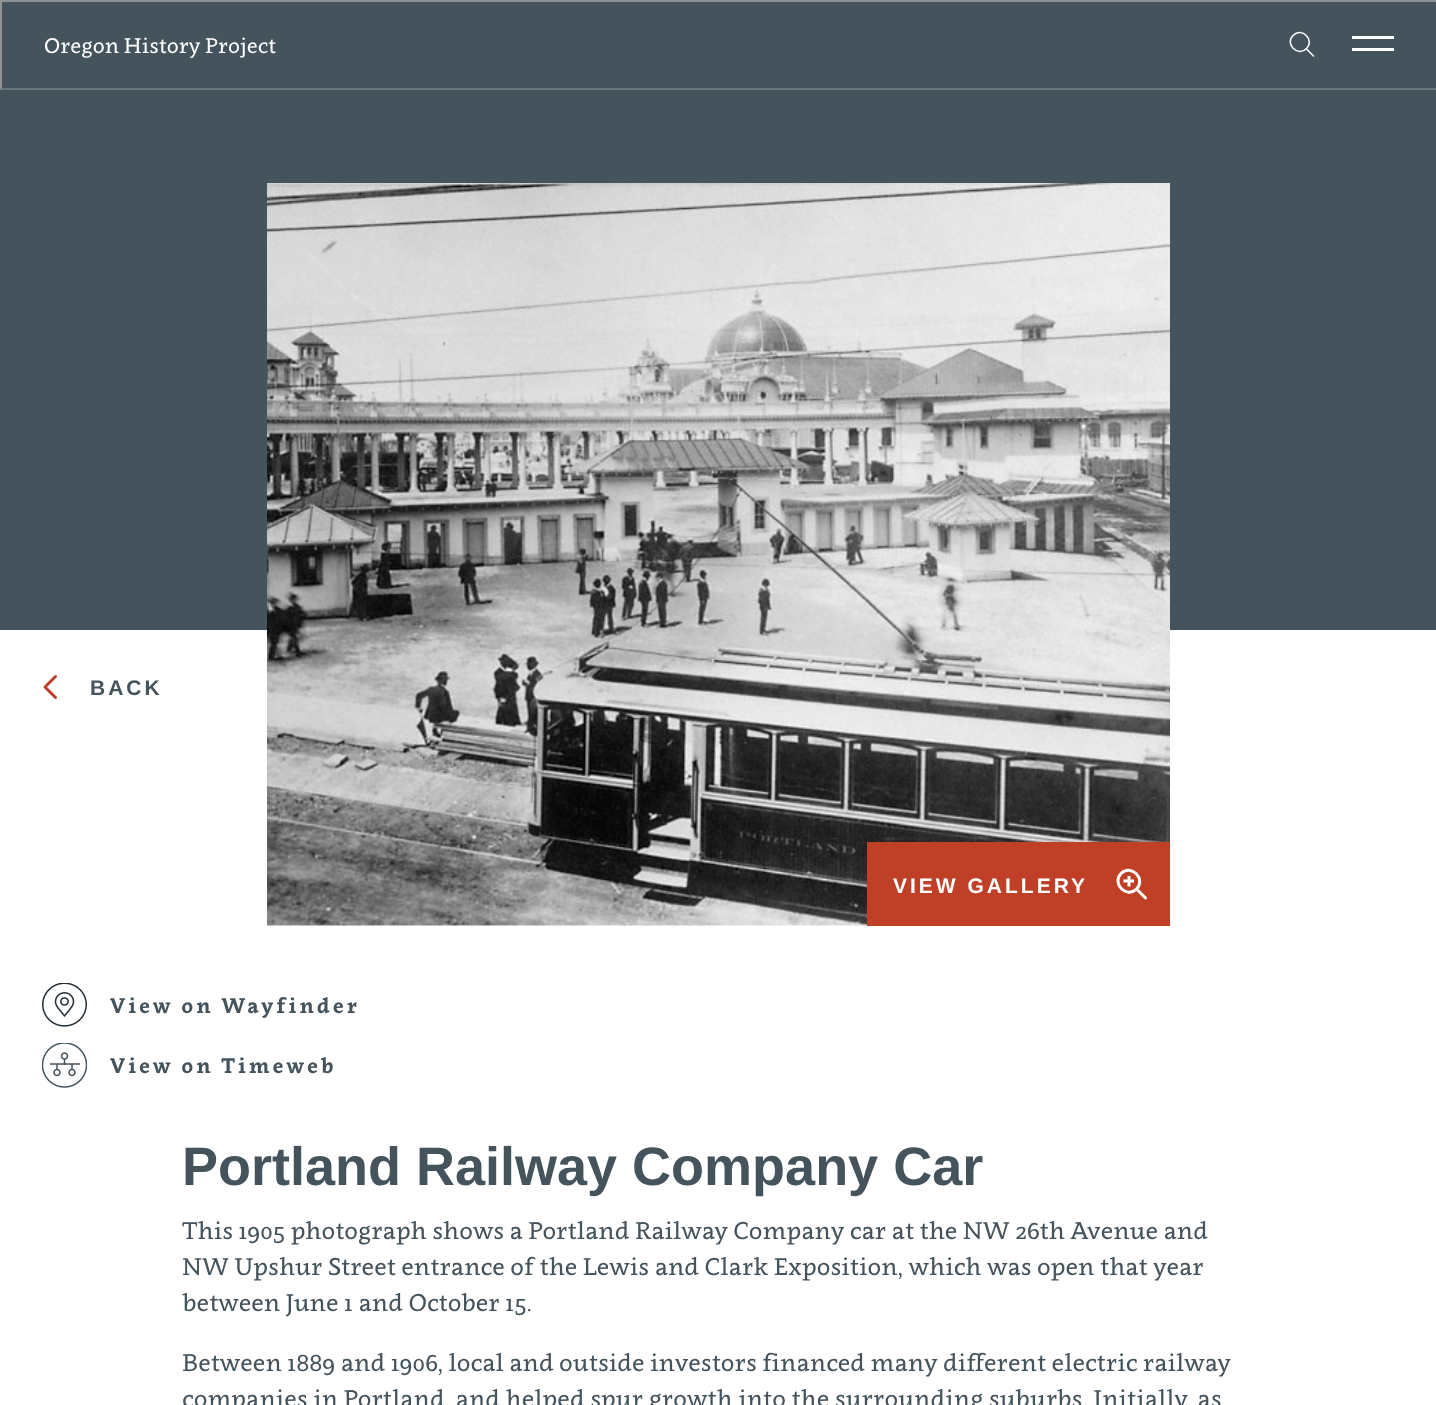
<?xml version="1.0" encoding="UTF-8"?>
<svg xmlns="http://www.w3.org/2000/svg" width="1436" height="1405">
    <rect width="100%" height="100%" fill="#FFFFFF"/>
    <rect x="0" y="0" width="1436" height="2" fill="#8E9396"/>
    <rect x="0" y="2" width="1436" height="628" fill="#44535C"/>
    <path d="M 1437 90 H 0 L 2 88 H 1436 Z" fill="#69757D"/>
    <path d="M 0 90 V 0 L 2 2 V 88 Z" fill="#8E9396"/>
    <text x="44" y="53" font-family="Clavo" font-size="21" fill="#FFFFFF">Oregon History Project</text>
    <path d="M 1293 35.5 C 1302 26.5 1315 40 1306.5 48.5 C 1298 57.5 1284.5 44 1293 35.5 Z" fill="none" stroke="#FFFFFF" stroke-width="1.5"/>
    <path d="M 1306.5 49 L 1313.5 56" fill="none" stroke="#FFFFFF" stroke-width="1.5" stroke-linecap="round" stroke-linejoin="round"/>
    <rect x="1352" y="36" width="42" height="3" fill="#FFFFFF"/>
    <rect x="1352" y="48" width="42" height="3" fill="#FFFFFF"/>
    <path d="M 55.5 676.5 L 45 687 L 55.5 697.5" fill="none" stroke="#BF3F27" stroke-width="3" stroke-linecap="round" stroke-linejoin="round"/>
    <text x="90" y="695" font-family="Liberation Sans" font-size="21" font-weight="700" letter-spacing="3" fill="#44535C">BACK</text>
    <image x="267" y="183" width="903" height="743" href="img_01.png"/>
    <rect x="867" y="842" width="303" height="84" fill="#BF3F27"/>
    <text x="893" y="893" font-family="Liberation Sans" font-size="21" font-weight="700" letter-spacing="3" fill="#FFFFFF">VIEW GALLERY</text>
    <path d="M 1121 873.5 C 1131 863.5 1146.5 879 1136.5 889 C 1126.5 899 1111.5 883.5 1121 873.5 Z" fill="none" stroke="#FFFFFF" stroke-width="3"/>
    <path d="M 1137 889.5 L 1145.5 898" fill="none" stroke="#FFFFFF" stroke-width="3" stroke-linecap="round" stroke-linejoin="round"/>
    <path d="M 1129 877.5 V 885 M 1125 881 H 1132.5" fill="none" stroke="#FFFFFF" stroke-width="3" stroke-linecap="square" stroke-linejoin="round"/>
    <image x="42" y="983" width="45" height="44" href="img_02.png"/>
    <text x="110" y="1013" font-family="Clavo" font-size="21" font-weight="700" letter-spacing="3" fill="#44535C">View on Wayfinder</text>
    <image x="42" y="1043" width="45" height="45" href="img_03.png"/>
    <text x="110" y="1073" font-family="Clavo" font-size="21" font-weight="700" letter-spacing="3" fill="#44535C">View on Timeweb</text>
    <text x="182" y="1185" font-family="Liberation Sans" font-size="54" font-weight="700" fill="#44535C">Portland Railway Company Car</text>
    <text font-family="Clavo" font-size="24" fill="#44535C">
        <tspan x="182" y="1239">This 1905 photograph shows a Portland Railway Company car at the NW 26th Avenue and</tspan>
        <tspan x="182" y="1275">NW Upshur Street entrance of the Lewis and Clark Exposition, which was open that year</tspan>
        <tspan x="182" y="1311">between June 1 and October 15.</tspan>
    </text>
    <text font-family="Clavo" font-size="24" fill="#44535C">
        <tspan x="182" y="1371">Between 1889 and 1906, local and outside investors financed many different electric railway</tspan>
        <tspan x="182" y="1407">companies in Portland, and helped spur growth into the surrounding suburbs. Initially, as</tspan>
    </text>
</svg>
